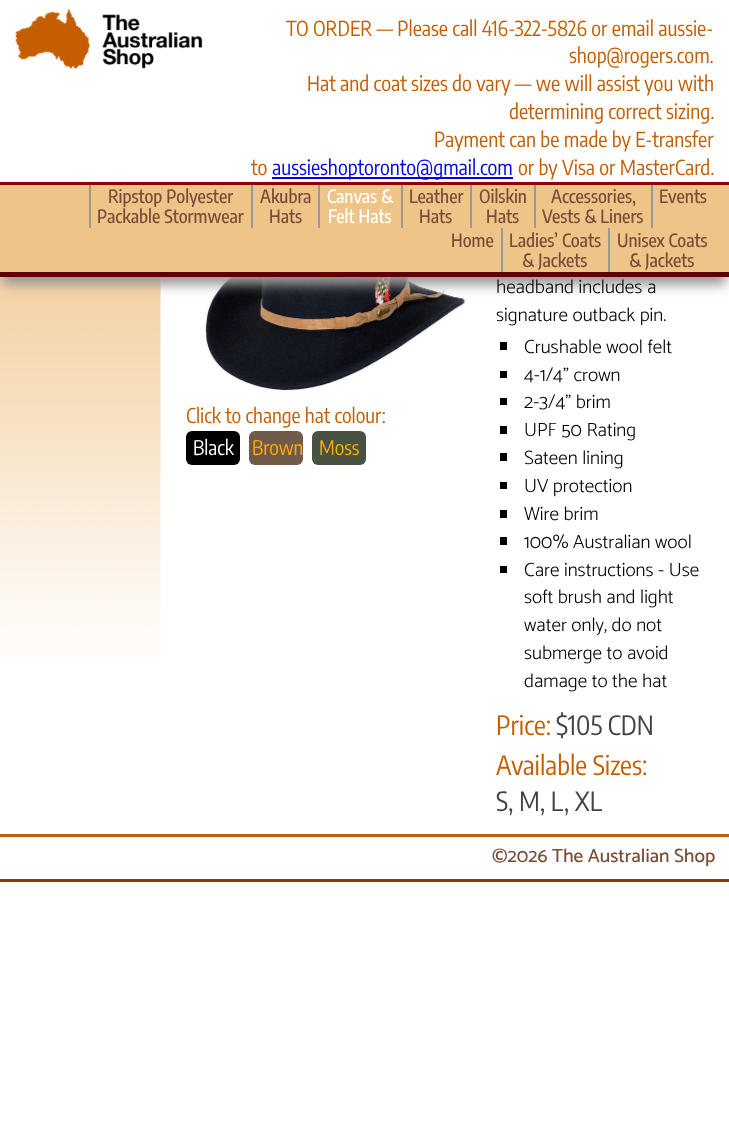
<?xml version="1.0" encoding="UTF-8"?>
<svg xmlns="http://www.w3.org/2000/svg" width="729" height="1137">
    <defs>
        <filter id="blur1" x="-50%" y="-200%" width="200%" height="500%"><feGaussianBlur stdDeviation="6"/></filter>
    </defs>
    <rect width="100%" height="100%" fill="#FFFFFF"/>
    <image x="0" y="277" width="161" height="380" href="img_02.png"/>
    <image x="205" y="277" width="260" height="114" href="img_03.png"/>
    <rect x="3" y="15" width="723" height="270" fill="#9A9A9A" filter="url(#blur1)"/>
    <rect x="0" y="3" width="729" height="179" fill="#FFFFFF"/>
    <image x="15" y="9" width="188" height="60" href="img_01.png"/>
    <text x="286" y="36" font-family="Encode Sans Condensed" font-size="20.6" fill="#C55E03">TO ORDER — Please call 416-322-5826 or email aussie-</text>
    <text x="569" y="63" font-family="Encode Sans Condensed" font-size="20.6" fill="#C55E03">shop@rogers.com.</text>
    <text x="307" y="91" font-family="Encode Sans Condensed" font-size="20.6" fill="#C55E03">Hat and coat sizes do vary — we will assist you with</text>
    <text x="509" y="119" font-family="Encode Sans Condensed" font-size="20.6" fill="#C55E03">determining correct sizing.</text>
    <text x="434" y="147" font-family="Encode Sans Condensed" font-size="20.6" fill="#C55E03">Payment can be made by E-transfer</text>
    <text x="251" y="175" font-family="Encode Sans Condensed" font-size="20.6" fill="#C55E03">to</text>
    <rect x="272" y="177" width="241" height="2" fill="#0000EE"/>
    <text x="272" y="175" font-family="Encode Sans Condensed" font-size="20.6" fill="#0000EE">aussieshoptoronto@gmail.com</text>
    <text x="518" y="175" font-family="Encode Sans Condensed" font-size="20.6" fill="#C55E03">or by Visa or MasterCard.</text>
    <rect x="0" y="185" width="729" height="87" fill="#EFC488"/>
    <rect x="0" y="182" width="729" height="3" fill="#8F0002"/>
    <rect x="0" y="272" width="729" height="5" fill="#5F0001"/>
    <rect x="89" y="185" width="2" height="43" fill="#999999"/>
    <text x="108" y="203" font-family="Encode Sans Condensed" font-size="18.25" font-weight="500" fill="#794D38">Ripstop Polyester</text>
    <text x="97" y="223" font-family="Encode Sans Condensed" font-size="18.25" font-weight="500" fill="#794D38">Packable Stormwear</text>
    <rect x="251" y="185" width="2" height="43" fill="#999999"/>
    <text x="260" y="203" font-family="Encode Sans Condensed" font-size="18.25" font-weight="500" fill="#794D38">Akubra</text>
    <text x="269" y="223" font-family="Encode Sans Condensed" font-size="18.25" font-weight="500" fill="#794D38">Hats</text>
    <rect x="318" y="185" width="2" height="43" fill="#999999"/>
    <text x="327" y="203" font-family="Encode Sans Condensed" font-size="18.25" font-weight="500" fill="#FFFFFF">Canvas &amp;</text>
    <text x="328" y="223" font-family="Encode Sans Condensed" font-size="18.25" font-weight="500" fill="#FFFFFF">Felt Hats</text>
    <rect x="401" y="185" width="2" height="43" fill="#999999"/>
    <text x="409" y="203" font-family="Encode Sans Condensed" font-size="18.25" font-weight="500" fill="#794D38">Leather</text>
    <text x="419" y="223" font-family="Encode Sans Condensed" font-size="18.25" font-weight="500" fill="#794D38">Hats</text>
    <rect x="470" y="185" width="2" height="43" fill="#999999"/>
    <text x="479" y="203" font-family="Encode Sans Condensed" font-size="18.25" font-weight="500" fill="#794D38">Oilskin</text>
    <text x="486" y="223" font-family="Encode Sans Condensed" font-size="18.25" font-weight="500" fill="#794D38">Hats</text>
    <rect x="534" y="185" width="2" height="43" fill="#999999"/>
    <text x="551" y="203" font-family="Encode Sans Condensed" font-size="18.25" font-weight="500" fill="#794D38">Accessories,</text>
    <text x="542" y="223" font-family="Encode Sans Condensed" font-size="18.25" font-weight="500" fill="#794D38">Vests &amp; Liners</text>
    <rect x="651" y="185" width="2" height="43" fill="#999999"/>
    <text x="659" y="203" font-family="Encode Sans Condensed" font-size="18.25" font-weight="500" fill="#794D38">Events</text>
    <text x="451" y="247" font-family="Encode Sans Condensed" font-size="18.25" font-weight="500" fill="#794D38">Home</text>
    <rect x="501" y="228" width="2" height="44" fill="#999999"/>
    <text x="509" y="247" font-family="Encode Sans Condensed" font-size="18.25" font-weight="500" fill="#794D38">Ladies’ Coats</text>
    <text x="522" y="267" font-family="Encode Sans Condensed" font-size="18.25" font-weight="500" fill="#794D38">&amp; Jackets</text>
    <rect x="608" y="228" width="2" height="44" fill="#999999"/>
    <text x="617" y="247" font-family="Encode Sans Condensed" font-size="18.25" font-weight="500" fill="#794D38">Unisex Coats</text>
    <text x="629" y="267" font-family="Encode Sans Condensed" font-size="18.25" font-weight="500" fill="#794D38">&amp; Jackets</text>
    <text x="186" y="423" font-family="Encode Sans Condensed" font-size="20.25" fill="#C55E03">Click to change hat colour:</text>
    <rect x="186" y="431" width="54" height="34" rx="6" fill="#000000"/>
    <text x="193" y="455" font-family="Encode Sans Condensed" font-size="20" fill="#FFFFFF">Black</text>
    <rect x="249" y="431" width="54" height="34" rx="6" fill="#705A4A"/>
    <text x="252" y="455" font-family="Encode Sans Condensed" font-size="20" fill="#FFAC00">Brown</text>
    <rect x="312" y="431" width="54" height="34" rx="6" fill="#495241"/>
    <text x="319" y="455" font-family="Encode Sans Condensed" font-size="20" fill="#FFAC00">Moss</text>
    <text font-family="Catamaran" font-size="19.25" font-weight="300" fill="#000000">
        <tspan x="496" y="293">headband includes a</tspan>
        <tspan x="496" y="321">signature outback pin.</tspan>
    </text>
    <rect x="500" y="342" width="7" height="8" fill="#000000"/>
    <text x="524" y="353" font-family="Catamaran" font-size="19.25" font-weight="300" fill="#000000">Crushable wool felt</text>
    <rect x="500" y="371" width="7" height="7" fill="#000000"/>
    <text x="524" y="381" font-family="Catamaran" font-size="19.25" font-weight="300" fill="#000000">4-1/4" crown</text>
    <rect x="500" y="398" width="7" height="7" fill="#000000"/>
    <text x="524" y="408" font-family="Catamaran" font-size="19.25" font-weight="300" fill="#000000">2-3/4" brim</text>
    <rect x="500" y="426" width="7" height="8" fill="#000000"/>
    <text x="524" y="436" font-family="Catamaran" font-size="19.25" font-weight="300" fill="#000000">UPF 50 Rating</text>
    <rect x="500" y="453" width="7" height="8" fill="#000000"/>
    <text x="524" y="464" font-family="Catamaran" font-size="19.25" font-weight="300" fill="#000000">Sateen lining</text>
    <rect x="500" y="482" width="7" height="7" fill="#000000"/>
    <text x="524" y="492" font-family="Catamaran" font-size="19.25" font-weight="300" fill="#000000">UV protection</text>
    <rect x="500" y="510" width="7" height="8" fill="#000000"/>
    <text x="524" y="520" font-family="Catamaran" font-size="19.25" font-weight="300" fill="#000000">Wire brim</text>
    <rect x="500" y="537" width="7" height="8" fill="#000000"/>
    <text x="524" y="548" font-family="Catamaran" font-size="19.25" font-weight="300" fill="#000000">100% Australian wool</text>
    <rect x="500" y="566" width="7" height="7" fill="#000000"/>
    <text font-family="Catamaran" font-size="19.25" font-weight="300" fill="#000000">
        <tspan x="524" y="576">Care instructions - Use</tspan>
        <tspan x="524" y="603">soft brush and light</tspan>
        <tspan x="524" y="631">water only, do not</tspan>
        <tspan x="524" y="659">submerge to avoid</tspan>
        <tspan x="524" y="687">damage to the hat</tspan>
    </text>
    <text x="496" y="735" font-family="Encode Sans Condensed" font-size="26.5" fill="#C55E03">Price:</text>
    <text x="556" y="735" font-family="Encode Sans Condensed" font-size="26.5" fill="#434343">$105 CDN</text>
    <text x="496" y="775" font-family="Encode Sans Condensed" font-size="26.5" fill="#C55E03">Available Sizes:</text>
    <text x="496" y="811" font-family="Encode Sans Condensed" font-size="26.5" fill="#434343">S, M, L, XL</text>
    <rect x="0" y="834" width="729" height="3" fill="#C55E03"/>
    <rect x="0" y="879" width="729" height="3" fill="#833F02"/>
    <text x="492" y="862" font-family="Catamaran" font-size="19.25" font-weight="500" fill="#794D38">©2026 The Australian Shop</text>
</svg>
